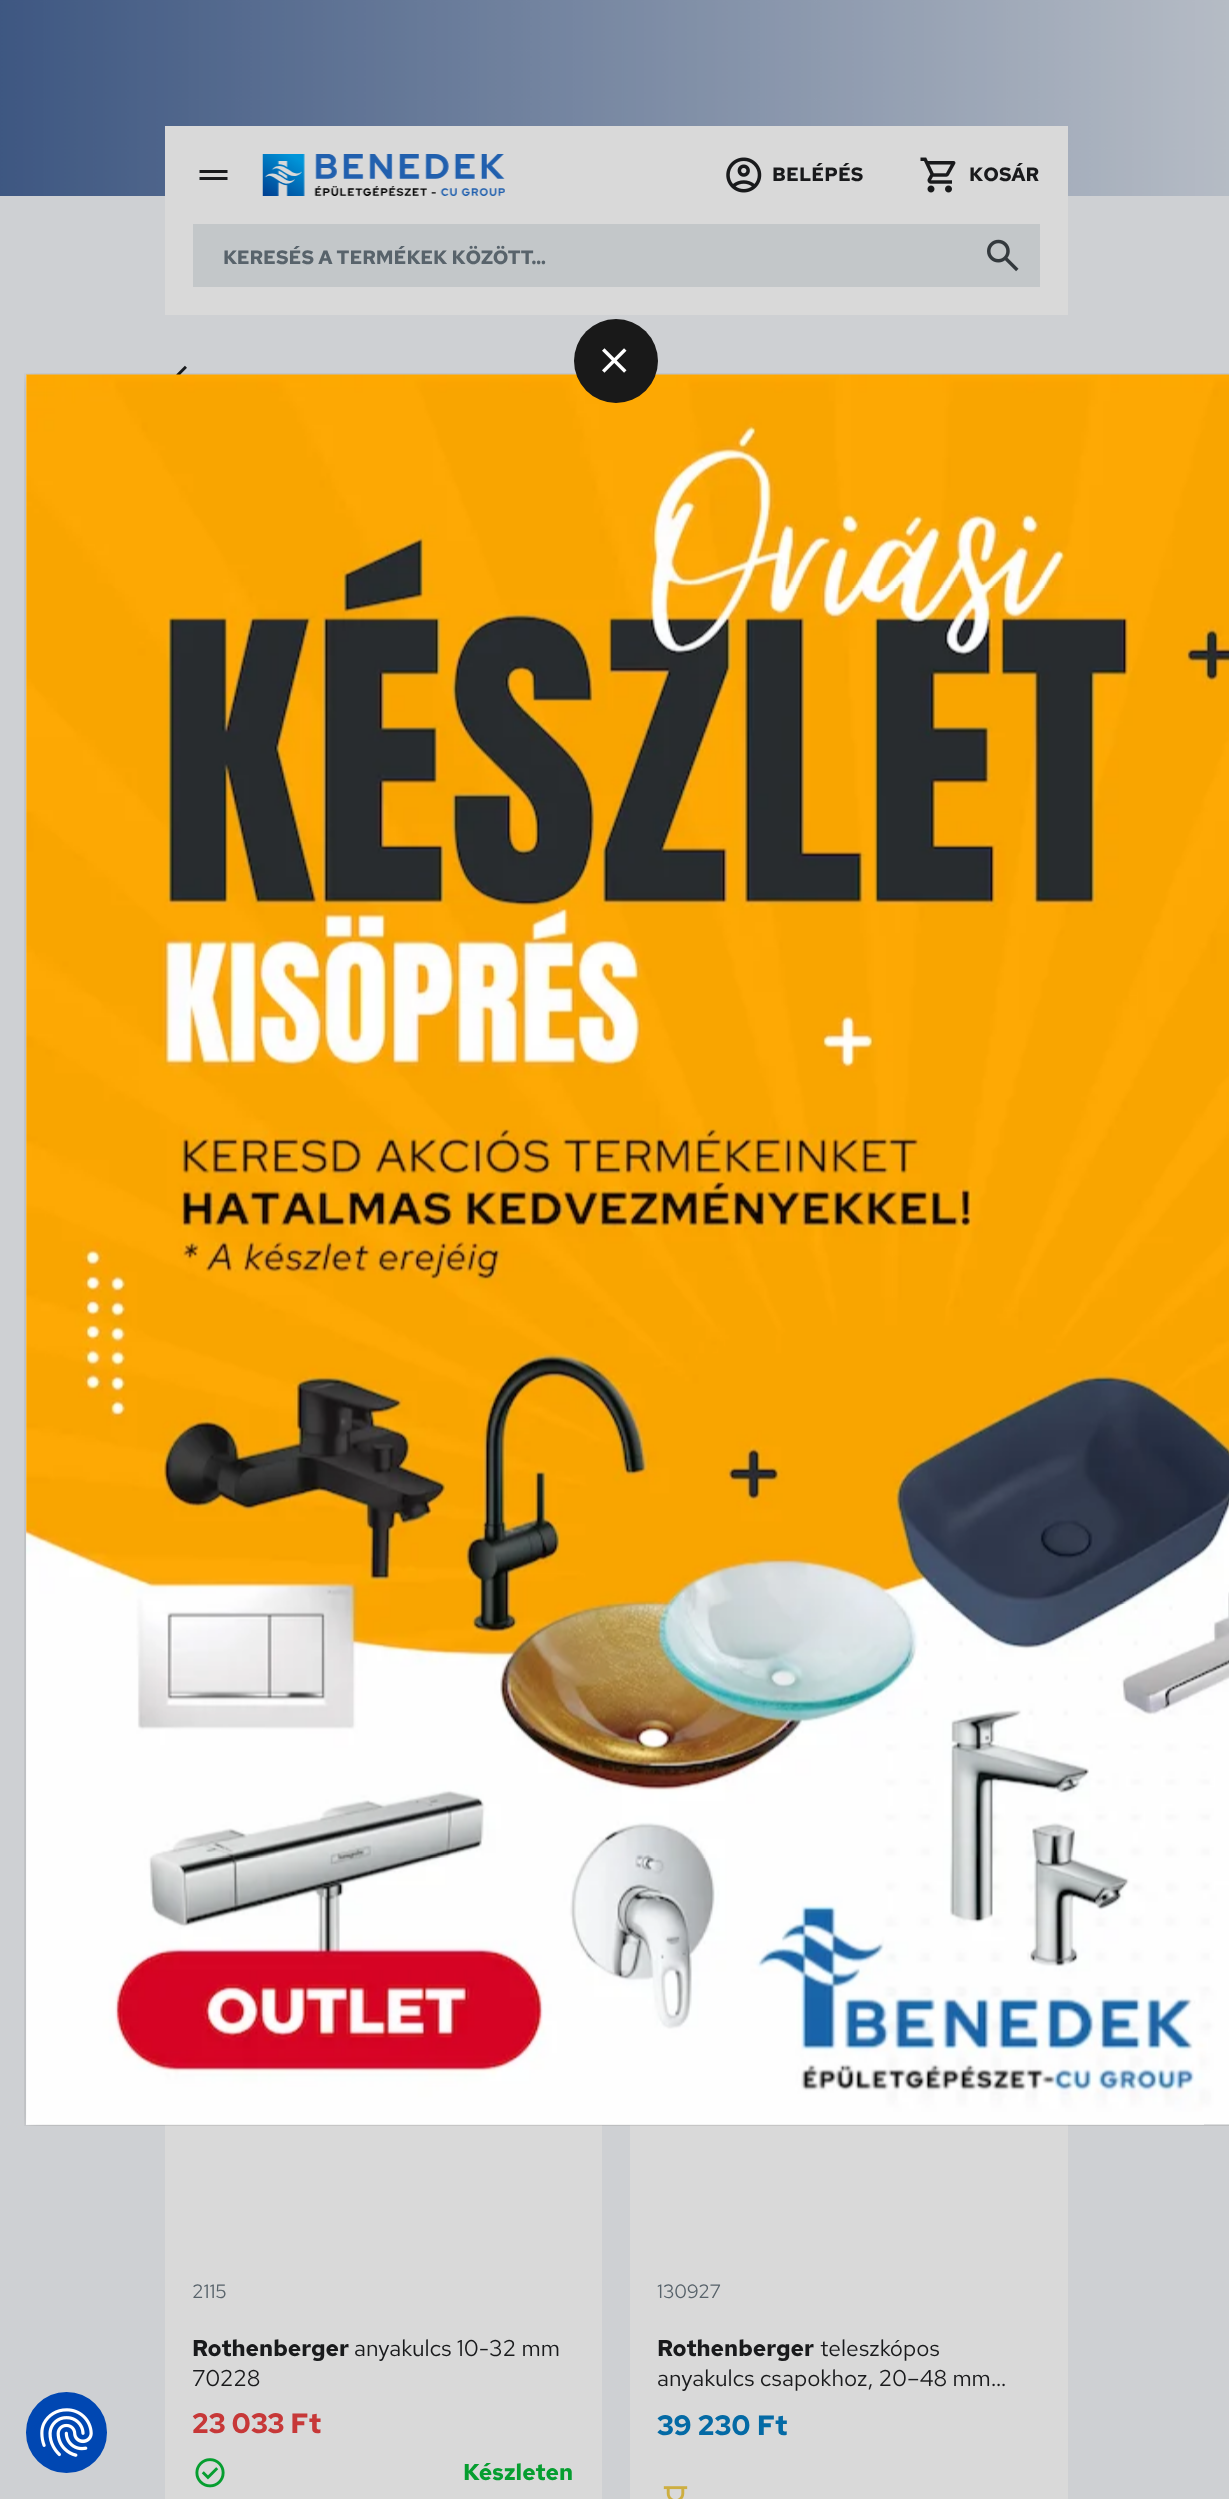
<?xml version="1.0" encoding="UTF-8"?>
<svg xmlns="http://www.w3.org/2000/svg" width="1229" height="2499">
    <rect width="100%" height="100%" fill="#CED0D3"/>
    <image x="0" y="0" width="1229" height="196" href="img_01.png"/>
    <rect x="165" y="126" width="903" height="189" fill="#D9D9D9"/>
    <path d="M 199.5 180 V 177 H 227.5 V 180 Z M 199.5 173 V 170 H 227.5 V 173 Z" fill="#191A1C"/>
    <image x="262" y="154" width="243" height="42" href="img_02.png"/>
    <image x="726" y="157" width="36" height="36" href="img_03.png"/>
    <text x="772" y="181" font-family="Red Hat Text" font-size="19.25" font-weight="700" fill="#191A1C">BELÉPÉS</text>
    <image x="920" y="157" width="36" height="36" href="img_04.png"/>
    <text x="969" y="181" font-family="Red Hat Text" font-size="19.25" font-weight="700" fill="#191A1C">KOSÁR</text>
    <rect x="193" y="224" width="847" height="63" fill="#C3C7C9"/>
    <text x="223" y="264" font-family="Red Hat Text" font-size="19.25" font-weight="700" fill="#58636B">KERESÉS A TERMÉKEK KÖZÖTT...</text>
    <image x="987" y="239" width="32" height="33" href="img_05.png"/>
    <image x="176" y="365" width="11" height="10" href="img_06.png"/>
    <rect x="165" y="2125" width="437" height="374" fill="#D9D9D9"/>
    <text x="192" y="2298" font-family="Red Hat Text" font-size="19.25" fill="#58636B">2115</text>
    <text x="192" y="2356" font-family="Red Hat Text" font-size="22.75" font-weight="700" fill="#191A1C">Rothenberger</text>
    <text x="354" y="2356" font-family="Red Hat Text" font-size="22.75" fill="#191A1C">anyakulcs 10-32 mm</text>
    <text x="192" y="2386" font-family="Red Hat Text" font-size="22.75" fill="#191A1C">70228</text>
    <text x="192" y="2433" font-family="Red Hat Text" font-size="28" font-weight="700" fill="#C73838">23 033 Ft</text>
    <image x="195" y="2458" width="30" height="30" href="img_07.png"/>
    <text x="463" y="2480" font-family="Red Hat Text" font-size="22.75" font-weight="700" fill="#069E30">Készleten</text>
    <rect x="630" y="2125" width="438" height="374" fill="#D9D9D9"/>
    <text x="657" y="2298" font-family="Red Hat Text" font-size="19.25" fill="#58636B">130927</text>
    <text x="657" y="2356" font-family="Red Hat Text" font-size="22.75" font-weight="700" fill="#191A1C">Rothenberger</text>
    <text x="820" y="2356" font-family="Red Hat Text" font-size="22.75" fill="#191A1C">teleszkópos</text>
    <text x="657" y="2386" font-family="Red Hat Text" font-size="22.75" fill="#191A1C">anyakulcs csapokhoz, 20–48 mm…</text>
    <text x="657" y="2435" font-family="Red Hat Text" font-size="28" font-weight="700" fill="#046AA5">39 230 Ft</text>
    <image x="663" y="2486" width="25" height="13" href="img_08.png"/>
    <rect x="26" y="375" width="1178" height="1750" fill="#FFFFFF"/>
    <image x="24" y="373" width="1205" height="1753" href="img_10.png"/>
    <circle cx="616" cy="361" r="42" fill="#191919"/>
    <image x="602" y="348" width="25" height="25" href="img_09.png"/>
    <circle cx="66.5" cy="2432.5" r="39.5" fill="#0047B2" stroke="#0047B2" stroke-width="2"/>
    <image x="40" y="2408" width="53" height="49" href="img_11.png"/>
</svg>
